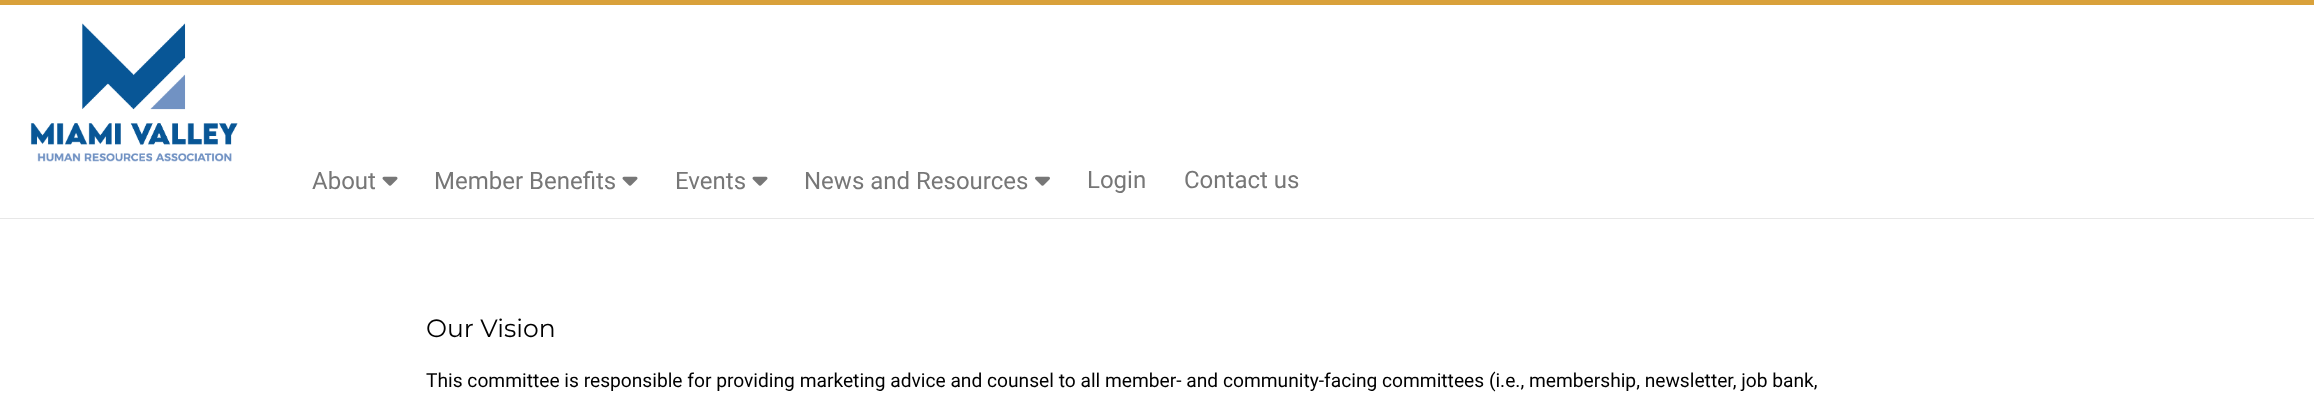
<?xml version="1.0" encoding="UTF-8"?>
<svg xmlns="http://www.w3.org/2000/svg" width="2314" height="402">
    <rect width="100%" height="100%" fill="#FFFFFF"/>
    <rect x="0" y="0" width="2314" height="5" fill="#D9A13B"/>
    <rect x="0" y="218" width="2314" height="1" fill="#E7E7E7"/>
    <image x="30" y="23" width="208" height="139" href="img_01.png"/>
    <text x="312" y="189" font-family="Roboto" font-size="24" fill="#777777">About</text>
    <image x="382" y="176" width="16" height="10" href="img_02.png"/>
    <text x="434" y="189" font-family="Roboto" font-size="24" fill="#777777">Member Benefits</text>
    <image x="622" y="176" width="16" height="10" href="img_02.png"/>
    <text x="675" y="189" font-family="Roboto" font-size="24" fill="#777777">Events</text>
    <image x="752" y="176" width="16" height="10" href="img_02.png"/>
    <text x="804" y="189" font-family="Roboto" font-size="24" fill="#777777">News and Resources</text>
    <image x="1035" y="176" width="15" height="10" href="img_03.png"/>
    <text x="1087" y="188" font-family="Roboto" font-size="24" fill="#777777">Login</text>
    <text x="1184" y="188" font-family="Roboto" font-size="24" fill="#777777">Contact us</text>
    <text x="426" y="337" font-family="Montserrat" font-size="25" fill="#000000">Our Vision</text>
    <text x="426" y="387" font-family="Roboto" font-size="19.2" fill="#000000">This committee is responsible for providing marketing advice and counsel to all member- and community-facing committees (i.e., membership, newsletter, job bank,</text>
</svg>
